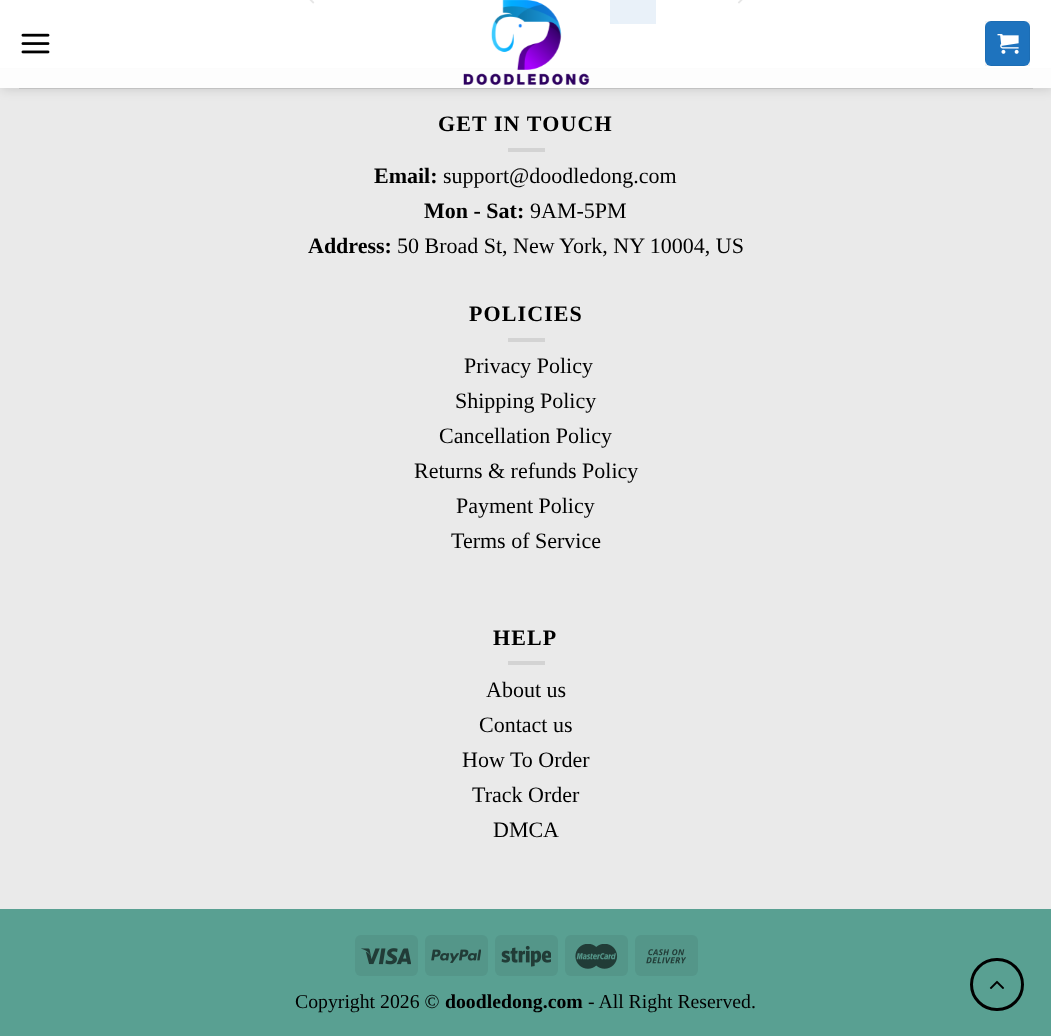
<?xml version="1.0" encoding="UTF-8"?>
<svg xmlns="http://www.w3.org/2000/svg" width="1051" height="1036">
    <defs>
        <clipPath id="clip1"><path d="M 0 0 H 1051 V 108 H 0 Z M 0 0 H 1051 V 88 H 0 Z" clip-rule="evenodd"/></clipPath>
        <filter id="blur1" x="-50%" y="-200%" width="200%" height="500%"><feGaussianBlur stdDeviation="6"/></filter>
    </defs>
    <rect width="100%" height="100%" fill="#FFFFFF"/>
    <image x="309" y="0" width="6" height="4" href="img_04.png"/>
    <rect x="610" y="0" width="46" height="24" fill="#1E73BE"/>
    <image x="737" y="0" width="6" height="4" href="img_05.png"/>
    <rect x="0" y="69" width="1051" height="840" fill="#EAEAEA"/>
    <rect x="0" y="68" width="1051" height="1" fill="#DEDEDE"/>
    <g clip-path="url(#clip1)">
        <rect x="1" y="1" width="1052" height="88" fill="#000000" fill-opacity="0.15" filter="url(#blur1)"/>
    </g>
    <rect x="0" y="0" width="1051" height="88" fill="#FFFFFF" fill-opacity="0.9"/>
    <image x="21" y="33" width="29" height="21" href="img_01.png"/>
    <image x="463" y="0" width="127" height="85" href="img_02.png"/>
    <rect x="985" y="21" width="45" height="45" rx="6" fill="#1E73BE"/>
    <rect x="985.5" y="21.5" width="44" height="44" fill="none" stroke="#000000" stroke-opacity="0.05"/>
    <image x="997" y="34" width="22" height="20" href="img_03.png"/>
    <rect x="19" y="88" width="1014" height="1" fill="#C2C2C2"/>
    <text x="438" y="131" font-family="Liberation Serif" font-size="22" font-weight="700" letter-spacing="1.1" fill="#000000">GET IN TOUCH</text>
    <rect x="508" y="148" width="37" height="4" fill="#D3D3D3"/>
    <text x="374" y="183" font-family="Liberation Serif" font-size="22" font-weight="700" fill="#000000">Email:</text>
    <text x="443" y="183" font-family="Liberation Serif" font-size="22" fill="#000000">support@doodledong.com</text>
    <text x="424" y="218" font-family="Liberation Serif" font-size="22" font-weight="700" fill="#000000">Mon - Sat:</text>
    <text x="530" y="218" font-family="Liberation Serif" font-size="22" fill="#000000">9AM-5PM</text>
    <text x="308" y="253" font-family="Liberation Serif" font-size="22" font-weight="700" fill="#000000">Address:</text>
    <text x="397" y="253" font-family="Liberation Serif" font-size="22" fill="#000000">50 Broad St, New York, NY 10004, US</text>
    <text x="469" y="321" font-family="Liberation Serif" font-size="22" font-weight="700" letter-spacing="1.1" fill="#000000">POLICIES</text>
    <rect x="508" y="338" width="37" height="4" fill="#D3D3D3"/>
    <text x="464" y="373" font-family="Liberation Serif" font-size="22" fill="#000000">Privacy Policy</text>
    <text x="455" y="408" font-family="Liberation Serif" font-size="22" fill="#000000">Shipping Policy</text>
    <text x="439" y="443" font-family="Liberation Serif" font-size="22" fill="#000000">Cancellation Policy</text>
    <text x="414" y="478" font-family="Liberation Serif" font-size="22" fill="#000000">Returns &amp; refunds Policy</text>
    <text x="456" y="513" font-family="Liberation Serif" font-size="22" fill="#000000">Payment Policy</text>
    <text x="451" y="548" font-family="Liberation Serif" font-size="22" fill="#000000">Terms of Service</text>
    <text x="493" y="645" font-family="Liberation Serif" font-size="22" font-weight="700" letter-spacing="1.1" fill="#000000">HELP</text>
    <rect x="508" y="661" width="37" height="4" fill="#D3D3D3"/>
    <text x="486" y="697" font-family="Liberation Serif" font-size="22" fill="#000000">About us</text>
    <text x="479" y="732" font-family="Liberation Serif" font-size="22" fill="#000000">Contact us</text>
    <text x="462" y="767" font-family="Liberation Serif" font-size="22" fill="#000000">How To Order</text>
    <text x="472" y="802" font-family="Liberation Serif" font-size="22" fill="#000000">Track Order</text>
    <text x="493" y="837" font-family="Liberation Serif" font-size="22" fill="#000000">DMCA</text>
    <rect x="0" y="909" width="1051" height="127" fill="#59A092"/>
    <rect x="355" y="935" width="63" height="41" rx="6" fill="#549689"/>
    <image x="361" y="948" width="50" height="17" href="img_06.png"/>
    <rect x="425" y="935" width="63" height="41" rx="6" fill="#549689"/>
    <image x="431" y="949" width="50" height="14" href="img_07.png"/>
    <rect x="495" y="935" width="63" height="41" rx="6" fill="#549689"/>
    <image x="501" y="945" width="50" height="22" href="img_08.png"/>
    <rect x="565" y="935" width="63" height="41" rx="6" fill="#549689"/>
    <image x="575" y="944" width="43" height="25" href="img_09.png"/>
    <rect x="635" y="935" width="63" height="41" rx="6" fill="#549689"/>
    <image x="646" y="949" width="40" height="15" href="img_10.png"/>
    <text x="295" y="1008" font-family="Liberation Serif" font-size="19.75" fill="#000000">Copyright 2026 ©</text>
    <text x="445" y="1008" font-family="Liberation Serif" font-size="19.75" font-weight="700" fill="#000000">doodledong.com</text>
    <text x="588" y="1008" font-family="Liberation Serif" font-size="19.75" fill="#000000">- All Right Reserved.</text>
    <rect x="971.5" y="959.5" width="51" height="50" rx="25" fill="none" stroke="#000000" stroke-width="3"/>
    <image x="989" y="980" width="15" height="9" href="img_11.png"/>
</svg>
